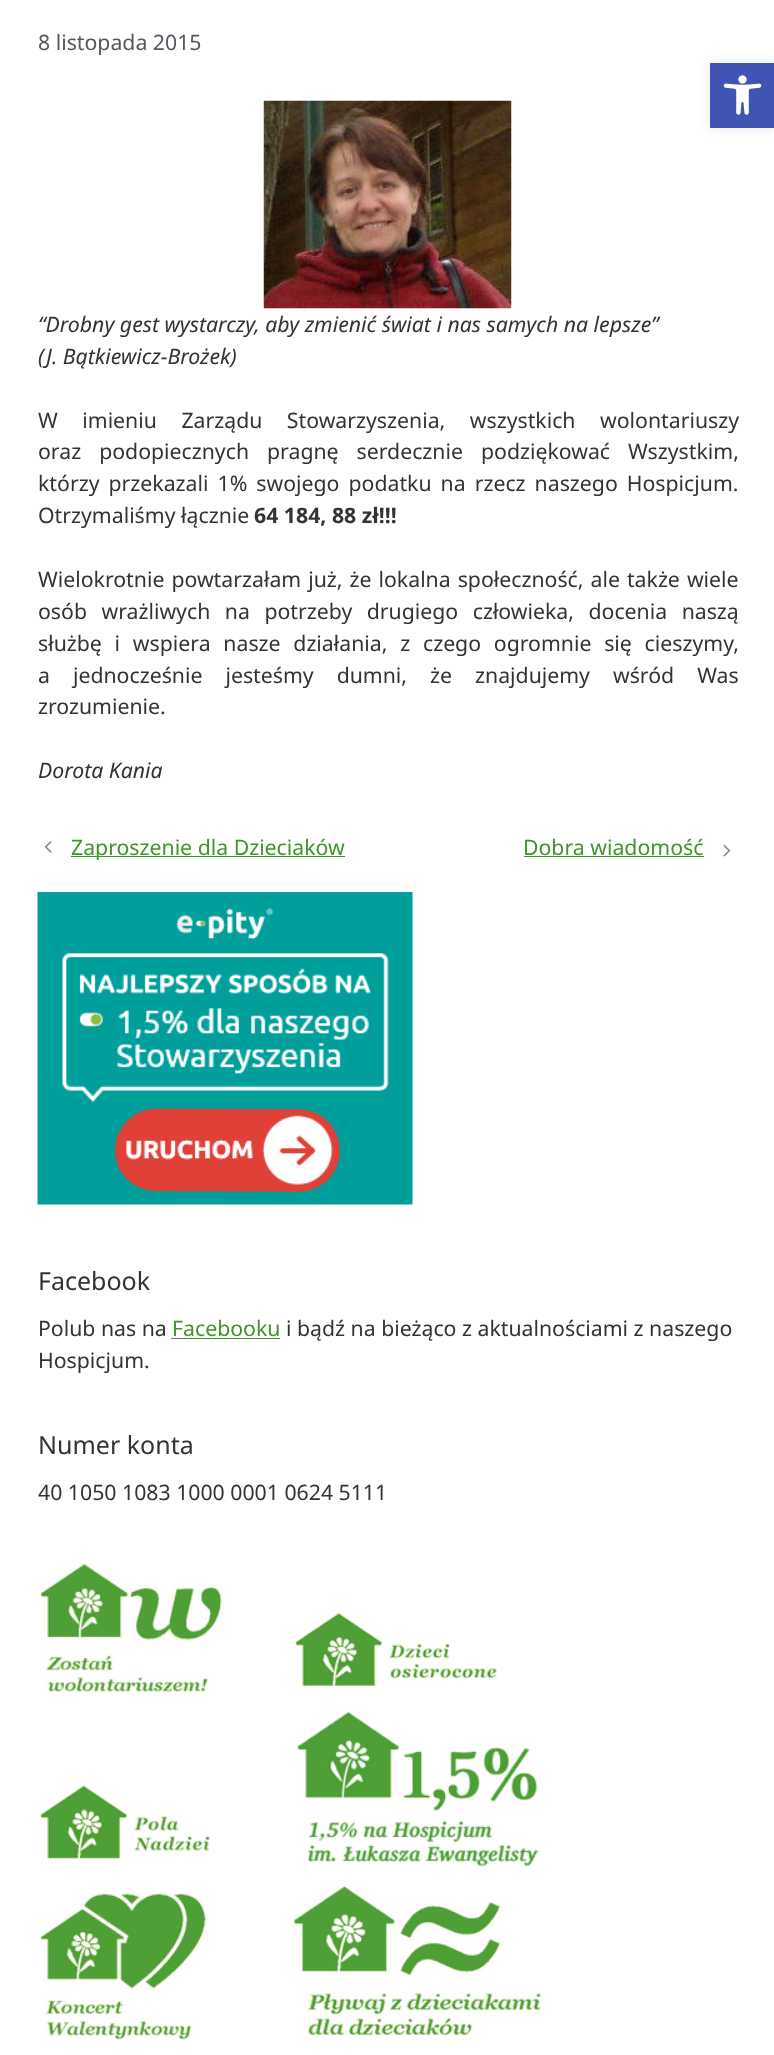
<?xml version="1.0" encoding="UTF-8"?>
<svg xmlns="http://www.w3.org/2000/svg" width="774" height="2055">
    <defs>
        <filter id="blur1" x="-50%" y="-200%" width="200%" height="500%"><feGaussianBlur stdDeviation="6"/></filter>
    </defs>
    <rect width="100%" height="100%" fill="#FFFFFF"/>
    <text x="38" y="50" font-family="Noto Sans" font-size="21.25" fill="#575760">8 listopada 2015</text>
    <image x="263" y="100" width="249" height="209" href="img_01.png"/>
    <text font-family="Noto Sans" font-size="21.25" font-style="italic" fill="#333333">
        <tspan x="38" y="332">“Drobny gest wystarczy, aby zmienić świat i nas samych na lepsze”</tspan>
        <tspan x="38" y="364">(J. Bątkiewicz-Brożek)</tspan>
    </text>
    <text font-family="Noto Sans" font-size="21.25" fill="#333333">
        <tspan x="38" y="428" word-spacing="19">W imieniu Zarządu Stowarzyszenia, wszystkich wolontariuszy</tspan>
        <tspan x="38" y="459" word-spacing="12.5">oraz podopiecznych pragnę serdecznie podziękować Wszystkim,</tspan>
        <tspan x="38" y="491" word-spacing="3.5">którzy przekazali 1% swojego podatku na rzecz naszego Hospicjum.</tspan>
        <tspan x="38" y="523">Otrzymaliśmy łącznie</tspan>
    </text>
    <text x="254" y="523" font-family="Noto Sans" font-size="21.25" font-weight="700" fill="#333333">64 184, 88 zł!!!</text>
    <text font-family="Noto Sans" font-size="21.25" fill="#333333">
        <tspan x="38" y="587" word-spacing="1.5">Wielokrotnie powtarzałam już, że lokalna społeczność, ale także wiele</tspan>
        <tspan x="38" y="619" word-spacing="9">osób wrażliwych na potrzeby drugiego człowieka, docenia naszą</tspan>
        <tspan x="38" y="651" word-spacing="7.25">służbę i wspiera nasze działania, z czego ogromnie się cieszymy,</tspan>
        <tspan x="38" y="683" word-spacing="17.5">a jednocześnie jesteśmy dumni, że znajdujemy wśród Was</tspan>
        <tspan x="38" y="714">zrozumienie.</tspan>
    </text>
    <text x="38" y="778" font-family="Noto Sans" font-size="21.25" font-style="italic" fill="#333333">Dorota Kania</text>
    <image x="44" y="841" width="8" height="12" href="img_02.png"/>
    <rect x="71" y="856" width="274" height="1" fill="#41942B"/>
    <text x="71" y="855" font-family="Noto Sans" font-size="21.25" fill="#41942B">Zaproszenie dla Dzieciaków</text>
    <text x="523" y="855" font-family="Noto Sans" font-size="21.25" fill="#41942B">Dobra wiadomość</text>
    <rect x="524" y="856" width="180" height="1" fill="#41942B"/>
    <image x="723" y="844" width="8" height="13" href="img_03.png"/>
    <image x="37" y="892" width="376" height="313" href="img_04.png"/>
    <text x="38" y="1290" font-family="Noto Sans" font-size="25" fill="#333333">Facebook</text>
    <text x="38" y="1336" font-family="Noto Sans" font-size="21.25" fill="#333333">Polub nas na</text>
    <text x="172" y="1336" font-family="Noto Sans" font-size="21.25" fill="#41942B">Facebooku</text>
    <rect x="171" y="1338" width="109" height="1" fill="#41942B"/>
    <text x="286" y="1336" font-family="Noto Sans" font-size="21.25" fill="#333333">i bądź na bieżąco z aktualnościami z naszego</text>
    <text x="38" y="1368" font-family="Noto Sans" font-size="21.25" fill="#333333">Hospicjum.</text>
    <text x="38" y="1454" font-family="Noto Sans" font-size="25" fill="#333333">Numer konta</text>
    <text x="38" y="1500" font-family="Noto Sans" font-size="21.25" fill="#333333">40 1050 1083 1000 0001 0624 5111</text>
    <image x="40" y="1564" width="182" height="129" href="img_05.png"/>
    <image x="295" y="1613" width="202" height="73" href="img_06.png"/>
    <image x="40" y="1785" width="171" height="74" href="img_07.png"/>
    <image x="297" y="1711" width="242" height="156" href="img_08.png"/>
    <image x="40" y="1893" width="167" height="147" href="img_09.png"/>
    <image x="293" y="1885" width="248" height="151" href="img_10.png"/>
    <rect x="710" y="63" width="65" height="65" fill="#000000" fill-opacity="0.1" filter="url(#blur1)"/>
    <rect x="710" y="63" width="64" height="65" fill="#4054B2"/>
    <image x="723" y="75" width="39" height="40" href="img_11.png"/>
</svg>
